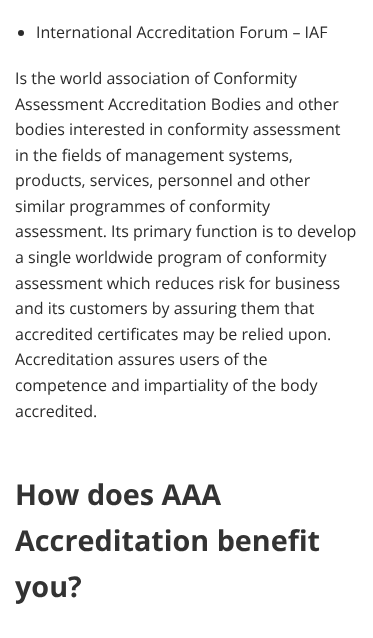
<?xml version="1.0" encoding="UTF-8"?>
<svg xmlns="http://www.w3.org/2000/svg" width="373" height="638">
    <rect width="100%" height="100%" fill="#FFFFFF"/>
    <circle cx="21" cy="33" r="3" fill="#2B2B2B"/>
    <text x="36" y="38" font-family="Open Sans" font-size="16" fill="#2B2B2B">International Accreditation Forum – IAF</text>
    <text font-family="Open Sans" font-size="16" fill="#2B2B2B">
        <tspan x="15" y="84">Is the world association of Conformity</tspan>
        <tspan x="15" y="110">Assessment Accreditation Bodies and other</tspan>
        <tspan x="15" y="135">bodies interested in conformity assessment</tspan>
        <tspan x="15" y="161">in the fields of management systems,</tspan>
        <tspan x="15" y="186">products, services, personnel and other</tspan>
        <tspan x="15" y="212">similar programmes of conformity</tspan>
        <tspan x="15" y="237">assessment. Its primary function is to develop</tspan>
        <tspan x="15" y="263">a single worldwide program of conformity</tspan>
        <tspan x="15" y="289">assessment which reduces risk for business</tspan>
        <tspan x="15" y="314">and its customers by assuring them that</tspan>
        <tspan x="15" y="340">accredited certificates may be relied upon.</tspan>
        <tspan x="15" y="365">Accreditation assures users of the</tspan>
        <tspan x="15" y="391">competence and impartiality of the body</tspan>
        <tspan x="15" y="417">accredited.</tspan>
    </text>
    <text font-family="Open Sans" font-size="28.75" font-weight="700" fill="#333333">
        <tspan x="15" y="505">How does AAA</tspan>
        <tspan x="15" y="551">Accreditation benefit</tspan>
        <tspan x="15" y="597">you?</tspan>
    </text>
</svg>
